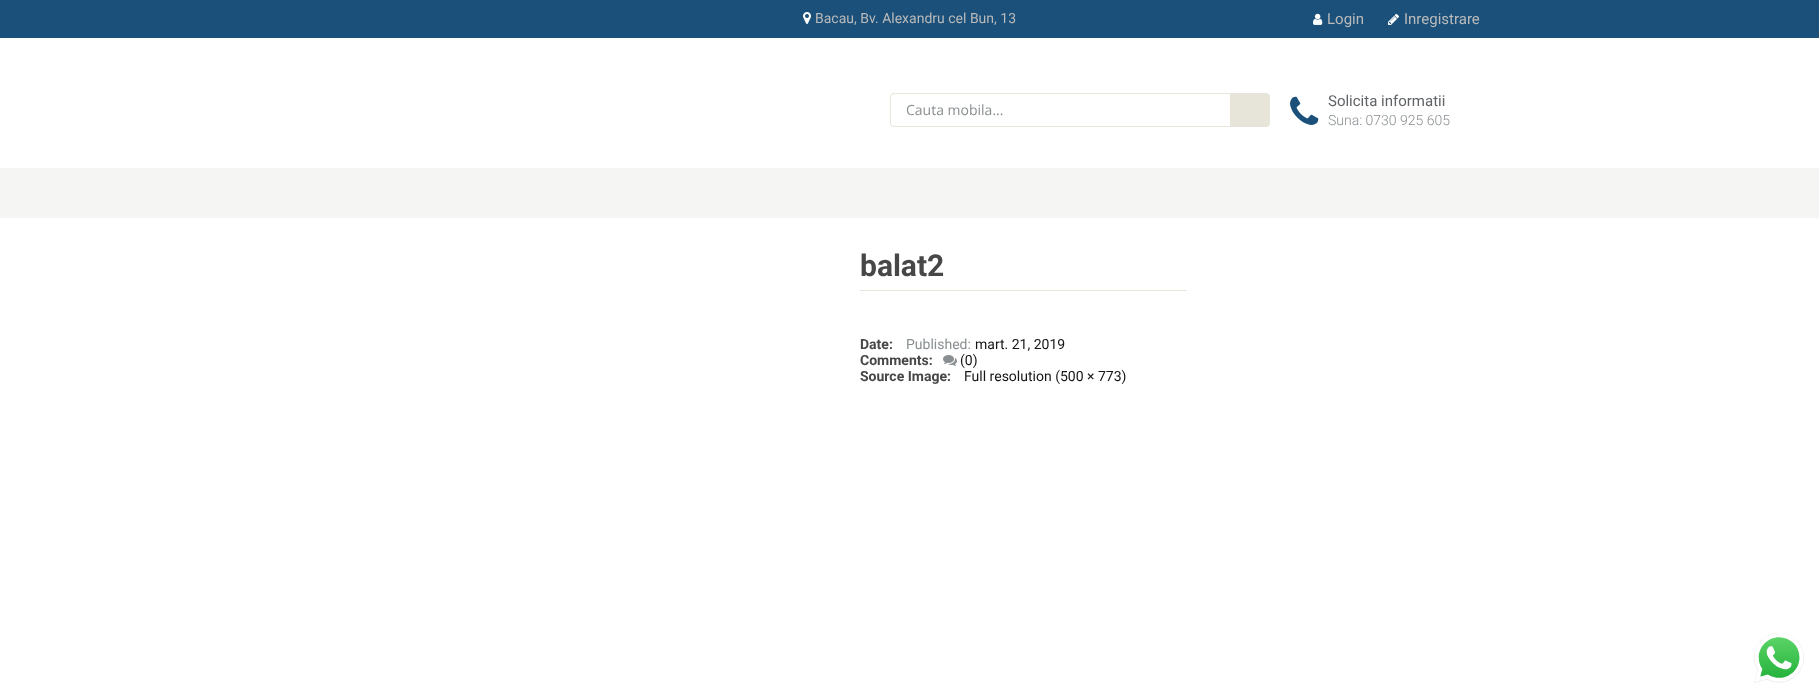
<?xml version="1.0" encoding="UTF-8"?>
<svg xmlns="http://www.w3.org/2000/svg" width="1819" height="698">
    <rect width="100%" height="100%" fill="#FFFFFF"/>
    <rect x="0" y="0" width="1819" height="38" fill="#1A507A"/>
    <image x="803" y="12" width="8" height="12" href="img_01.png"/>
    <text x="815" y="23" font-family="Roboto" font-size="14" fill="#BABABA">Bacau, Bv. Alexandru cel Bun, 13</text>
    <image x="1313" y="13" width="10" height="12" href="img_02.png"/>
    <text x="1327" y="24" font-family="Roboto" font-size="15" fill="#BABABA">Login</text>
    <image x="1388" y="14" width="11" height="11" href="img_03.png"/>
    <text x="1404" y="24" font-family="Roboto" font-size="15" fill="#BABABA">Inregistrare</text>
    <rect x="890.5" y="93.5" width="379" height="33" rx="3.5" fill="none" stroke="#E7E4D9"/>
    <text x="906" y="115" font-family="Open Sans" font-size="14" fill="#898E91">Cauta mobila...</text>
    <path d="M 1230 93 H 1266 C 1268 93 1270 95 1270 97 V 123 C 1270 125 1268 127 1266 127 H 1230 Z" fill="#E7E4D9"/>
    <image x="1290" y="96" width="29" height="29" href="img_04.png"/>
    <text x="1328" y="106" font-family="Roboto" font-size="15" fill="#606366">Solicita informatii</text>
    <text x="1328" y="125" font-family="Roboto" font-size="14" font-weight="300" fill="#898E91">Suna: 0730 925 605</text>
    <rect x="0" y="168" width="1819" height="50" fill="#F5F5F3"/>
    <rect x="860" y="290" width="327" height="1" fill="#E7E4D9"/>
    <text x="860" y="276" font-family="Roboto" font-size="30" font-weight="700" fill="#484747">balat2</text>
    <text x="860" y="349" font-family="Roboto" font-size="14" font-weight="700" fill="#484747">Date:</text>
    <text x="906" y="349" font-family="Roboto" font-size="14" fill="#898E91">Published:</text>
    <text x="975" y="349" font-family="Roboto" font-size="14" fill="#151515">mart. 21, 2019</text>
    <text x="860" y="365" font-family="Roboto" font-size="14" font-weight="700" fill="#484747">Comments:</text>
    <image x="943" y="355" width="14" height="11" href="img_05.png"/>
    <text x="960" y="365" font-family="Roboto" font-size="14" fill="#151515">(0)</text>
    <text x="860" y="381" font-family="Roboto" font-size="14" font-weight="700" fill="#484747">Source Image:</text>
    <text x="964" y="381" font-family="Roboto" font-size="14" fill="#151515">Full resolution (500 × 773)</text>
    <image x="1754" y="633" width="50" height="50" href="img_06.png"/>
</svg>
